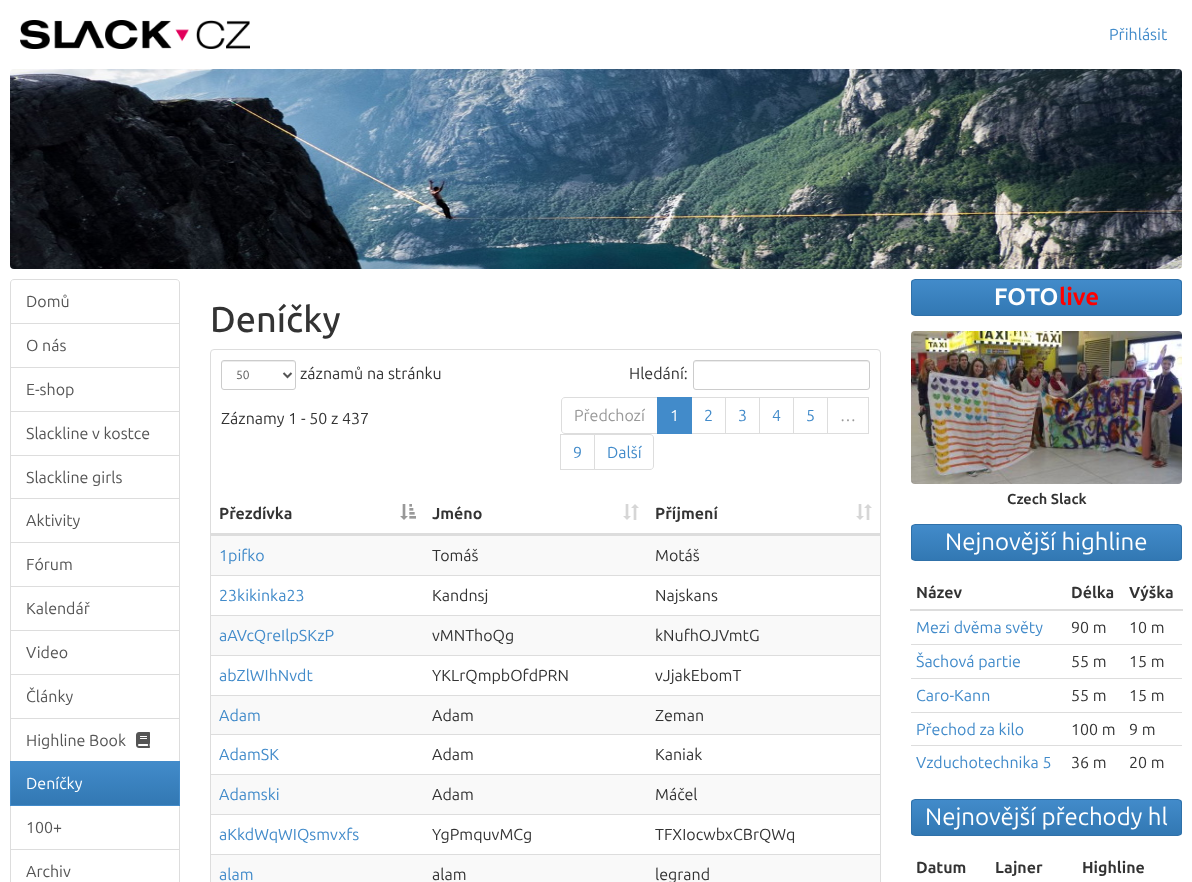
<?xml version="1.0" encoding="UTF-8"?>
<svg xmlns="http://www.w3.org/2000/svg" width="1192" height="882">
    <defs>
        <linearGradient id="g1" gradientUnits="userSpaceOnUse" x1="95" y1="762" x2="95" y2="805"><stop offset="0" stop-color="#428BCA"/><stop offset="1" stop-color="#3278B3"/></linearGradient>
        <clipPath id="clip1"><rect x="911" y="279" width="271" height="37" rx="4"/></clipPath>
        <linearGradient id="g2" gradientUnits="userSpaceOnUse" x1="1047" y1="280" x2="1047" y2="315"><stop offset="0" stop-color="#428BCA"/><stop offset="1" stop-color="#3278B3"/></linearGradient>
        <clipPath id="clip2"><rect x="911" y="524" width="271" height="37" rx="4"/></clipPath>
        <linearGradient id="g3" gradientUnits="userSpaceOnUse" x1="1047" y1="525" x2="1047" y2="560"><stop offset="0" stop-color="#428BCA"/><stop offset="1" stop-color="#3278B3"/></linearGradient>
        <clipPath id="clip3"><rect x="911" y="799" width="271" height="37" rx="4"/></clipPath>
        <linearGradient id="g4" gradientUnits="userSpaceOnUse" x1="1047" y1="800" x2="1047" y2="835"><stop offset="0" stop-color="#428BCA"/><stop offset="1" stop-color="#3278B3"/></linearGradient>
    </defs>
    <rect width="100%" height="100%" fill="#FFFFFF"/>
    <image x="20" y="20" width="230" height="29" href="img_01.png"/>
    <text x="1109" y="40" font-family="Ubuntu" font-size="16" fill="#428BCA">Přihlásit</text>
    <image x="10" y="69" width="1172" height="200" href="img_02.png"/>
    <path d="M 14 279.5 H 176 C 178 279.5 179.5 281 179.5 283 V 323.5 H 10.5 V 283 C 10.5 281 12 279.5 14 279.5 Z" fill="none" stroke="#DDDDDD"/>
    <text x="26" y="307" font-family="Ubuntu" font-size="16" fill="#555555">Domů</text>
    <rect x="10.5" y="323.5" width="169" height="44" fill="none" stroke="#DDDDDD"/>
    <text x="26" y="351" font-family="Ubuntu" font-size="16" fill="#555555">O nás</text>
    <rect x="10.5" y="367.5" width="169" height="44" fill="none" stroke="#DDDDDD"/>
    <text x="26" y="395" font-family="Ubuntu" font-size="16" fill="#555555">E-shop</text>
    <rect x="10.5" y="411.5" width="169" height="44" fill="none" stroke="#DDDDDD"/>
    <text x="26" y="439" font-family="Ubuntu" font-size="16" fill="#555555">Slackline v kostce</text>
    <rect x="10.5" y="455.5" width="169" height="43" fill="none" stroke="#DDDDDD"/>
    <text x="26" y="483" font-family="Ubuntu" font-size="16" fill="#555555">Slackline girls</text>
    <rect x="10.5" y="498.5" width="169" height="44" fill="none" stroke="#DDDDDD"/>
    <text x="26" y="526" font-family="Ubuntu" font-size="16" fill="#555555">Aktivity</text>
    <rect x="10.5" y="542.5" width="169" height="44" fill="none" stroke="#DDDDDD"/>
    <text x="26" y="570" font-family="Ubuntu" font-size="16" fill="#555555">Fórum</text>
    <rect x="10.5" y="586.5" width="169" height="44" fill="none" stroke="#DDDDDD"/>
    <text x="26" y="614" font-family="Ubuntu" font-size="16" fill="#555555">Kalendář</text>
    <rect x="10.5" y="630.5" width="169" height="44" fill="none" stroke="#DDDDDD"/>
    <text x="26" y="658" font-family="Ubuntu" font-size="16" fill="#555555">Video</text>
    <rect x="10.5" y="674.5" width="169" height="44" fill="none" stroke="#DDDDDD"/>
    <text x="26" y="702" font-family="Ubuntu" font-size="16" fill="#555555">Články</text>
    <rect x="10.5" y="718.5" width="169" height="43" fill="none" stroke="#DDDDDD"/>
    <text x="26" y="746" font-family="Ubuntu" font-size="16" fill="#555555">Highline Book</text>
    <image x="136" y="732" width="14" height="16" href="img_03.png"/>
    <rect x="11" y="762" width="168" height="43" fill="url(#g1)"/>
    <rect x="10.5" y="805.5" width="169" height="44" fill="none" stroke="#DDDDDD"/>
    <rect x="10.5" y="761.5" width="169" height="44" fill="none" stroke="#428BCA"/>
    <text x="26" y="789" font-family="Ubuntu" font-size="16" fill="#FFFFFF">Deníčky</text>
    <text x="26" y="833" font-family="Ubuntu" font-size="16" fill="#555555">100+</text>
    <rect x="10.5" y="849.5" width="169" height="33" fill="none" stroke="#DDDDDD"/>
    <text x="26" y="877" font-family="Ubuntu" font-size="16" fill="#555555">Archiv</text>
    <text x="210" y="332" font-family="Ubuntu" font-size="36" font-weight="500" fill="#333333">Deníčky</text>
    <rect x="210.5" y="349.5" width="670" height="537" rx="3.5" fill="none" stroke="#DDDDDD"/>
    <path d="M 224 362 H 293 C 294 362 295 363 295 364 C 295 358 285 361 282 361 H 236 C 232 361 222 358 222 364 C 222 363 223 362 224 362 Z" fill="#ECECEC"/>
    <rect x="221.5" y="360.5" width="74" height="29" rx="2.5" fill="none" stroke="#CCCCCC"/>
    <path d="M 283.5 373 L 287.5 377 L 291.5 373" fill="none" stroke="#555555" stroke-width="2"/>
    <text x="236" y="379" font-family="Ubuntu" font-size="12" fill="#555555">50</text>
    <text x="300" y="379" font-family="Ubuntu" font-size="16" fill="#333333">záznamů na stránku</text>
    <text x="629" y="379" font-family="Ubuntu" font-size="16" fill="#333333">Hledání:</text>
    <path d="M 696 362 H 867 C 868 362 869 363 869 364 C 869 363 869 361 867 361 H 696 C 694 361 694 363 694 364 C 694 363 695 362 696 362 Z" fill="#ECECEC"/>
    <rect x="693.5" y="360.5" width="176" height="29" rx="2.5" fill="none" stroke="#CCCCCC"/>
    <text x="221" y="424" font-family="Ubuntu" font-size="16" fill="#333333">Záznamy 1 - 50 z 437</text>
    <path d="M 565 397.5 H 657.5 V 433.5 H 565 C 563 433.5 561.5 432 561.5 430 V 401 C 561.5 399 563 397.5 565 397.5 Z" fill="none" stroke="#DDDDDD"/>
    <text x="574" y="421" font-family="Ubuntu" font-size="16" fill="#999999">Předchozí</text>
    <rect x="691.5" y="397.5" width="34" height="36" fill="none" stroke="#DDDDDD"/>
    <rect x="657" y="397" width="35" height="37" fill="#428BCA"/>
    <text x="670" y="421" font-family="Ubuntu" font-size="16" fill="#FFFFFF">1</text>
    <text x="704" y="421" font-family="Ubuntu" font-size="16" fill="#428BCA">2</text>
    <rect x="725.5" y="397.5" width="34" height="36" fill="none" stroke="#DDDDDD"/>
    <text x="738" y="421" font-family="Ubuntu" font-size="16" fill="#428BCA">3</text>
    <rect x="759.5" y="397.5" width="34" height="36" fill="none" stroke="#DDDDDD"/>
    <text x="772" y="421" font-family="Ubuntu" font-size="16" fill="#428BCA">4</text>
    <rect x="793.5" y="397.5" width="34" height="36" fill="none" stroke="#DDDDDD"/>
    <text x="806" y="421" font-family="Ubuntu" font-size="16" fill="#428BCA">5</text>
    <rect x="827.5" y="397.5" width="41" height="36" fill="none" stroke="#DDDDDD"/>
    <text x="840" y="421" font-family="Ubuntu" font-size="16" fill="#999999">…</text>
    <rect x="560.5" y="434.5" width="34" height="35" fill="none" stroke="#DDDDDD"/>
    <text x="573" y="458" font-family="Ubuntu" font-size="16" fill="#428BCA">9</text>
    <path d="M 594.5 434.5 H 650 C 652 434.5 653.5 436 653.5 438 V 466 C 653.5 468 652 469.5 650 469.5 H 594.5 Z" fill="#FFFFFF" stroke="#DDDDDD"/>
    <text x="607" y="458" font-family="Ubuntu" font-size="16" fill="#428BCA">Další</text>
    <rect x="211" y="533" width="669" height="2" fill="#DDDDDD"/>
    <text x="219" y="519" font-family="Ubuntu" font-size="16" font-weight="700" fill="#333333">Přezdívka</text>
    <image x="400" y="504" width="16" height="16" href="img_04.png"/>
    <text x="432" y="519" font-family="Ubuntu" font-size="16" font-weight="700" fill="#333333">Jméno</text>
    <image x="623" y="504" width="16" height="16" href="img_05.png"/>
    <text x="655" y="519" font-family="Ubuntu" font-size="16" font-weight="700" fill="#333333">Příjmení</text>
    <image x="856" y="504" width="16" height="16" href="img_05.png"/>
    <rect x="211" y="536" width="669" height="39" fill="#F9F9F9"/>
    <rect x="211" y="535" width="669" height="1" fill="#DDDDDD"/>
    <text x="219" y="561" font-family="Ubuntu" font-size="16" fill="#428BCA">1pifko</text>
    <text x="432" y="561" font-family="Ubuntu" font-size="16" fill="#333333">Tomáš</text>
    <text x="655" y="561" font-family="Ubuntu" font-size="16" fill="#333333">Motáš</text>
    <rect x="211" y="575" width="669" height="1" fill="#DDDDDD"/>
    <text x="219" y="601" font-family="Ubuntu" font-size="16" fill="#428BCA">23kikinka23</text>
    <text x="432" y="601" font-family="Ubuntu" font-size="16" fill="#333333">Kandnsj</text>
    <text x="655" y="601" font-family="Ubuntu" font-size="16" fill="#333333">Najskans</text>
    <rect x="211" y="616" width="669" height="39" fill="#F9F9F9"/>
    <rect x="211" y="615" width="669" height="1" fill="#DDDDDD"/>
    <text x="219" y="641" font-family="Ubuntu" font-size="16" fill="#428BCA">aAVcQreIlpSKzP</text>
    <text x="432" y="641" font-family="Ubuntu" font-size="16" fill="#333333">vMNThoQg</text>
    <text x="655" y="641" font-family="Ubuntu" font-size="16" fill="#333333">kNufhOJVmtG</text>
    <rect x="211" y="655" width="669" height="1" fill="#DDDDDD"/>
    <text x="219" y="681" font-family="Ubuntu" font-size="16" fill="#428BCA">abZlWIhNvdt</text>
    <text x="432" y="681" font-family="Ubuntu" font-size="16" fill="#333333">YKLrQmpbOfdPRN</text>
    <text x="655" y="681" font-family="Ubuntu" font-size="16" fill="#333333">vJjakEbomT</text>
    <rect x="211" y="696" width="669" height="38" fill="#F9F9F9"/>
    <rect x="211" y="695" width="669" height="1" fill="#DDDDDD"/>
    <text x="219" y="721" font-family="Ubuntu" font-size="16" fill="#428BCA">Adam</text>
    <text x="432" y="721" font-family="Ubuntu" font-size="16" fill="#333333">Adam</text>
    <text x="655" y="721" font-family="Ubuntu" font-size="16" fill="#333333">Zeman</text>
    <rect x="211" y="734" width="669" height="1" fill="#DDDDDD"/>
    <text x="219" y="760" font-family="Ubuntu" font-size="16" fill="#428BCA">AdamSK</text>
    <text x="432" y="760" font-family="Ubuntu" font-size="16" fill="#333333">Adam</text>
    <text x="655" y="760" font-family="Ubuntu" font-size="16" fill="#333333">Kaniak</text>
    <rect x="211" y="775" width="669" height="39" fill="#F9F9F9"/>
    <rect x="211" y="774" width="669" height="1" fill="#DDDDDD"/>
    <text x="219" y="800" font-family="Ubuntu" font-size="16" fill="#428BCA">Adamski</text>
    <text x="432" y="800" font-family="Ubuntu" font-size="16" fill="#333333">Adam</text>
    <text x="655" y="800" font-family="Ubuntu" font-size="16" fill="#333333">Máčel</text>
    <rect x="211" y="814" width="669" height="1" fill="#DDDDDD"/>
    <text x="219" y="840" font-family="Ubuntu" font-size="16" fill="#428BCA">aKkdWqWIQsmvxfs</text>
    <text x="432" y="840" font-family="Ubuntu" font-size="16" fill="#333333">YgPmquvMCg</text>
    <text x="655" y="840" font-family="Ubuntu" font-size="16" fill="#333333">TFXIocwbxCBrQWq</text>
    <rect x="211" y="855" width="669" height="27" fill="#F9F9F9"/>
    <rect x="211" y="854" width="669" height="1" fill="#DDDDDD"/>
    <text x="219" y="880" font-family="Ubuntu" font-size="16" fill="#428BCA">alam</text>
    <text x="432" y="880" font-family="Ubuntu" font-size="16" fill="#333333">alam</text>
    <text x="655" y="880" font-family="Ubuntu" font-size="16" fill="#333333">legrand</text>
    <g clip-path="url(#clip1)">
        <rect x="911" y="280" width="271" height="35" fill="url(#g2)"/>
    </g>
    <rect x="911.5" y="279.5" width="270" height="36" rx="3.5" fill="none" stroke="#3071A9"/>
    <text x="994" y="305" font-family="Ubuntu" font-size="24" font-weight="700" fill="#FFFFFF">FOTO</text>
    <text x="1059" y="305" font-family="Ubuntu" font-size="24" font-weight="700" fill="#FF0000">live</text>
    <image x="911" y="331" width="271" height="153" href="img_06.png"/>
    <text x="1007" y="504" font-family="Ubuntu" font-size="14.5" font-weight="700" fill="#333333">Czech Slack</text>
    <g clip-path="url(#clip2)">
        <rect x="911" y="525" width="271" height="35" fill="url(#g3)"/>
    </g>
    <rect x="911.5" y="524.5" width="270" height="36" rx="3.5" fill="none" stroke="#3071A9"/>
    <text x="945" y="550" font-family="Ubuntu" font-size="24" fill="#FFFFFF">Nejnovější highline</text>
    <text x="916" y="598" font-family="Ubuntu" font-size="16" font-weight="700" fill="#333333">Název</text>
    <text x="1071" y="598" font-family="Ubuntu" font-size="16" font-weight="700" fill="#333333">Délka</text>
    <rect x="910" y="609" width="273" height="2" fill="#DDDDDD"/>
    <text x="1129" y="598" font-family="Ubuntu" font-size="16" font-weight="700" fill="#333333">Výška</text>
    <text x="916" y="633" font-family="Ubuntu" font-size="16" fill="#428BCA">Mezi dvěma světy</text>
    <text x="1071" y="633" font-family="Ubuntu" font-size="16" fill="#333333">90 m</text>
    <text x="1129" y="633" font-family="Ubuntu" font-size="16" fill="#333333">10 m</text>
    <text x="916" y="667" font-family="Ubuntu" font-size="16" fill="#428BCA">Šachová partie</text>
    <text x="1071" y="667" font-family="Ubuntu" font-size="16" fill="#333333">55 m</text>
    <rect x="911" y="644" width="271" height="1" fill="#DDDDDD"/>
    <text x="1129" y="667" font-family="Ubuntu" font-size="16" fill="#333333">15 m</text>
    <text x="916" y="701" font-family="Ubuntu" font-size="16" fill="#428BCA">Caro-Kann</text>
    <text x="1071" y="701" font-family="Ubuntu" font-size="16" fill="#333333">55 m</text>
    <rect x="911" y="678" width="271" height="1" fill="#DDDDDD"/>
    <text x="1129" y="701" font-family="Ubuntu" font-size="16" fill="#333333">15 m</text>
    <text x="916" y="735" font-family="Ubuntu" font-size="16" fill="#428BCA">Přechod za kilo</text>
    <text x="1071" y="735" font-family="Ubuntu" font-size="16" fill="#333333">100 m</text>
    <rect x="911" y="712" width="271" height="1" fill="#DDDDDD"/>
    <text x="1129" y="735" font-family="Ubuntu" font-size="16" fill="#333333">9 m</text>
    <text x="916" y="768" font-family="Ubuntu" font-size="16" fill="#428BCA">Vzduchotechnika 5</text>
    <text x="1071" y="768" font-family="Ubuntu" font-size="16" fill="#333333">36 m</text>
    <rect x="911" y="745" width="271" height="1" fill="#DDDDDD"/>
    <text x="1129" y="768" font-family="Ubuntu" font-size="16" fill="#333333">20 m</text>
    <g clip-path="url(#clip3)">
        <rect x="911" y="800" width="271" height="35" fill="url(#g4)"/>
    </g>
    <rect x="911.5" y="799.5" width="270" height="36" rx="3.5" fill="none" stroke="#3071A9"/>
    <text x="925" y="825" font-family="Ubuntu" font-size="24" fill="#FFFFFF">Nejnovější přechody hl</text>
    <text x="916" y="873" font-family="Ubuntu" font-size="16" font-weight="700" fill="#333333">Datum</text>
    <text x="995" y="873" font-family="Ubuntu" font-size="16" font-weight="700" fill="#333333">Lajner</text>
    <text x="1082" y="873" font-family="Ubuntu" font-size="16" font-weight="700" fill="#333333">Highline</text>
</svg>
